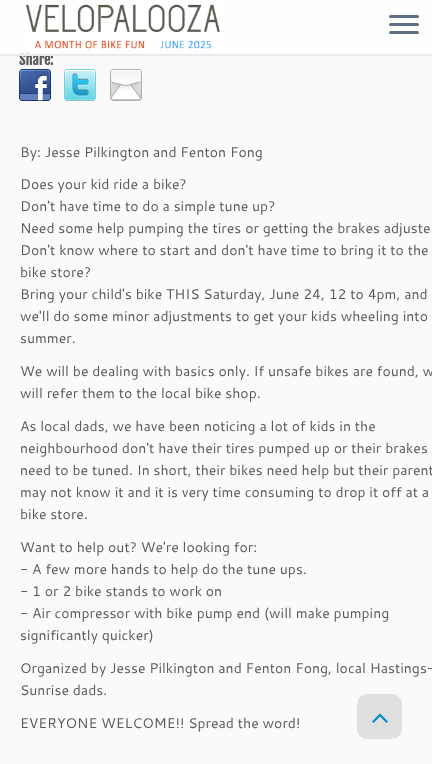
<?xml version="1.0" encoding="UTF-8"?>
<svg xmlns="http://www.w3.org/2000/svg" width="432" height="764">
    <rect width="100%" height="100%" fill="#FAFAFA"/>
    <text x="19" y="65" font-family="Fjalla One" font-size="14" font-weight="700" fill="#5A5A5A">Share:</text>
    <rect x="0" y="0" width="432" height="54" fill="#FFFFFF" fill-opacity="0.8"/>
    <rect x="0" y="54" width="432" height="2" fill="#E9EAEE"/>
    <image x="23" y="2" width="198" height="47" href="img_01.png"/>
    <rect x="389" y="15" width="30" height="3" rx="1.5" fill="#5F6F81"/>
    <rect x="389" y="23" width="30" height="3" rx="1.5" fill="#5F6F81"/>
    <rect x="389" y="31" width="30" height="3" rx="1.5" fill="#5F6F81"/>
    <image x="19" y="69" width="32" height="32" href="img_02.png"/>
    <image x="64" y="69" width="32" height="32" href="img_03.png"/>
    <image x="110" y="69" width="32" height="32" href="img_04.png"/>
    <text x="20" y="157" font-family="Cantarell" font-size="14" fill="#5A5A5A">By: Jesse Pilkington and Fenton Fong</text>
    <text font-family="Cantarell" font-size="14" fill="#5A5A5A">
        <tspan x="20" y="189">Does your kid ride a bike?</tspan>
        <tspan x="20" y="211">Don't have time to do a simple tune up?</tspan>
        <tspan x="20" y="233">Need some help pumping the tires or getting the brakes adjuste</tspan>
        <tspan x="20" y="255">Don't know where to start and don't have time to bring it to the</tspan>
        <tspan x="20" y="277">bike store?</tspan>
        <tspan x="20" y="299">Bring your child's bike THIS Saturday, June 24, 12 to 4pm, and</tspan>
        <tspan x="20" y="321">we'll do some minor adjustments to get your kids wheeling into</tspan>
        <tspan x="20" y="343">summer.</tspan>
    </text>
    <text font-family="Cantarell" font-size="14" fill="#5A5A5A">
        <tspan x="20" y="376">We will be dealing with basics only. If unsafe bikes are found, w</tspan>
        <tspan x="20" y="398">will refer them to the local bike shop.</tspan>
    </text>
    <text font-family="Cantarell" font-size="14" fill="#5A5A5A">
        <tspan x="20" y="431">As local dads, we have been noticing a lot of kids in the</tspan>
        <tspan x="20" y="453">neighbourhood don't have their tires pumped up or their brakes</tspan>
        <tspan x="20" y="475">need to be tuned. In short, their bikes need help but their parent</tspan>
        <tspan x="20" y="497">may not know it and it is very time consuming to drop it off at a</tspan>
        <tspan x="20" y="519">bike store.</tspan>
    </text>
    <text font-family="Cantarell" font-size="14" fill="#5A5A5A">
        <tspan x="20" y="552">Want to help out? We're looking for:</tspan>
        <tspan x="20" y="574">- A few more hands to help do the tune ups.</tspan>
        <tspan x="20" y="596">- 1 or 2 bike stands to work on</tspan>
        <tspan x="20" y="618">- Air compressor with bike pump end (will make pumping</tspan>
        <tspan x="20" y="640">significantly quicker)</tspan>
    </text>
    <text font-family="Cantarell" font-size="14" fill="#5A5A5A">
        <tspan x="20" y="673">Organized by Jesse Pilkington and Fenton Fong, local Hastings-</tspan>
        <tspan x="20" y="695">Sunrise dads.</tspan>
    </text>
    <text x="20" y="728" font-family="Cantarell" font-size="14" fill="#5A5A5A">EVERYONE WELCOME!! Spread the word!</text>
    <rect x="357" y="694" width="45" height="45" rx="10" fill="#E0E0E0"/>
    <image x="372" y="713" width="16" height="10" href="img_05.png"/>
</svg>
